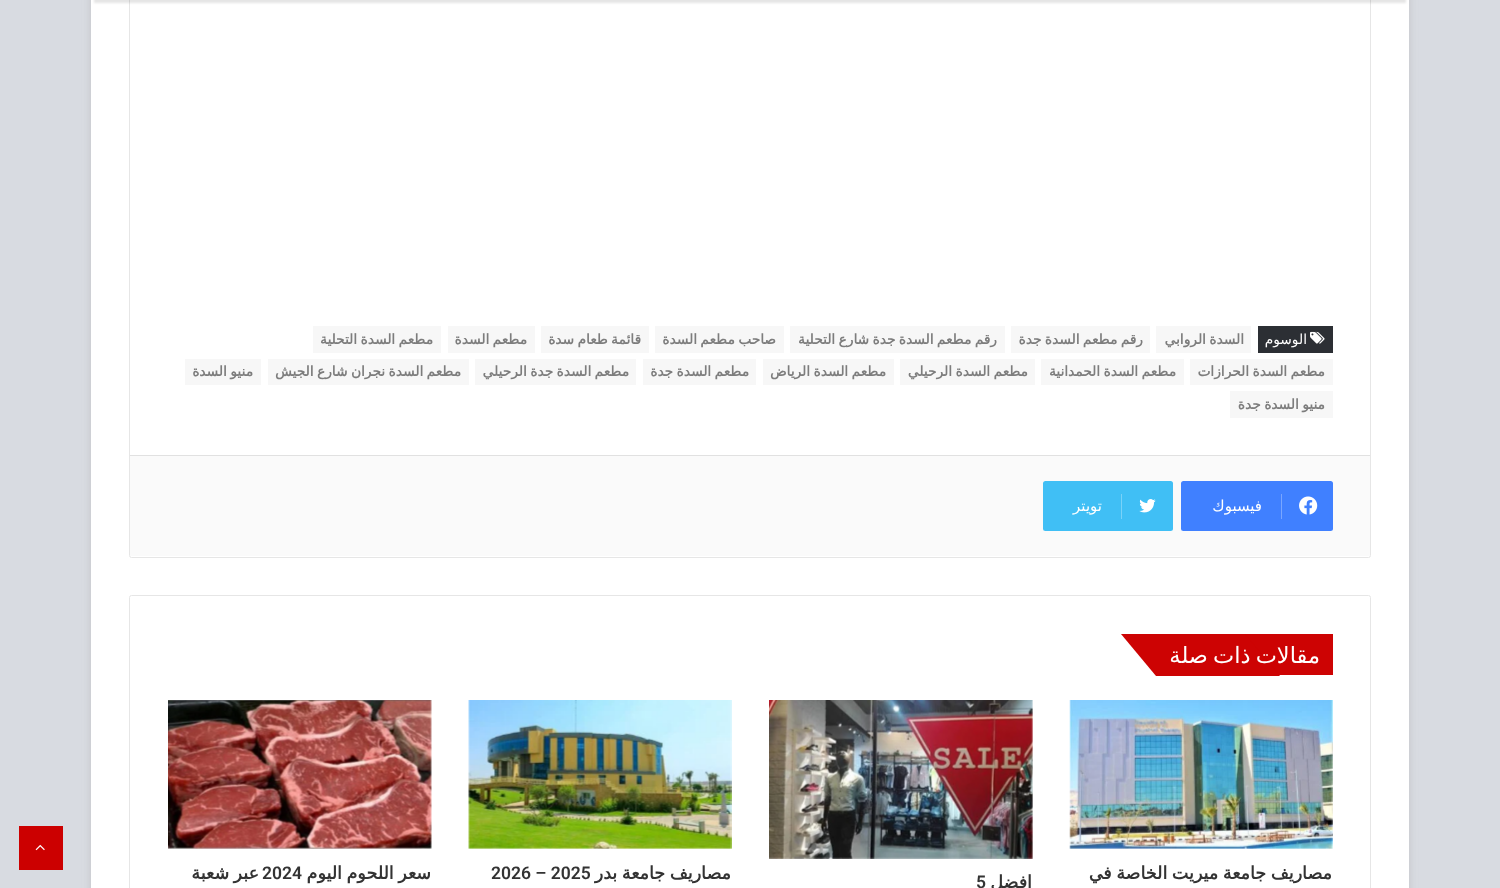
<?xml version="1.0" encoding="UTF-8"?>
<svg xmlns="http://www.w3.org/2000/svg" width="1500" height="888">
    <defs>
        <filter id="blur1" x="-50%" y="-200%" width="200%" height="500%"><feGaussianBlur stdDeviation="4.5"/></filter>
        <filter id="blur2" x="-50%" y="-200%" width="200%" height="500%"><feGaussianBlur stdDeviation="1"/></filter>
    </defs>
    <rect width="100%" height="100%" fill="#D8DBE1"/>
    <rect x="91" y="-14" width="1318" height="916" fill="#ABABAB" fill-opacity="0.5" filter="url(#blur1)"/>
    <rect x="91" y="0" width="1318" height="888" fill="#FFFFFF"/>
    <rect x="129.5" y="-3.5" width="1241" height="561" rx="2" fill="none" stroke="#E6E6E6"/>
    <rect x="94" y="-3" width="1312" height="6" fill="#000000" fill-opacity="0.1" filter="url(#blur2)"/>
    <rect x="1156" y="326" width="95" height="27" fill="#F7F7F7"/>
    <text x="1244" y="344" word-spacing="-1" font-family="DejaVu Sans" font-size="13.75" font-weight="700" direction="rtl" fill="#7D7D7D">السدة الروابي</text>
    <rect x="1011" y="326" width="139" height="27" fill="#F7F7F7"/>
    <text x="1143" y="344" word-spacing="-1" font-family="DejaVu Sans" font-size="13.75" font-weight="700" direction="rtl" fill="#7D7D7D">رقم مطعم السدة جدة</text>
    <rect x="790" y="326" width="215" height="27" fill="#F7F7F7"/>
    <text x="997" y="344" word-spacing="-1" font-family="DejaVu Sans" font-size="13.75" font-weight="700" direction="rtl" fill="#7D7D7D">رقم مطعم السدة جدة شارع التحلية</text>
    <rect x="655" y="326" width="129" height="27" fill="#F7F7F7"/>
    <text x="776" y="344" word-spacing="-1" font-family="DejaVu Sans" font-size="13.75" font-weight="700" direction="rtl" fill="#7D7D7D">صاحب مطعم السدة</text>
    <rect x="541" y="326" width="108" height="27" fill="#F7F7F7"/>
    <text x="641" y="344" word-spacing="-1" font-family="DejaVu Sans" font-size="13.75" font-weight="700" direction="rtl" fill="#7D7D7D">قائمة طعام سدة</text>
    <rect x="448" y="326" width="87" height="27" fill="#F7F7F7"/>
    <text x="527" y="344" word-spacing="-1" font-family="DejaVu Sans" font-size="13.75" font-weight="700" direction="rtl" fill="#7D7D7D">مطعم السدة</text>
    <rect x="313" y="326" width="128" height="27" fill="#F7F7F7"/>
    <text x="433" y="344" word-spacing="-1" font-family="DejaVu Sans" font-size="13.75" font-weight="700" direction="rtl" fill="#7D7D7D">مطعم السدة التحلية</text>
    <rect x="1190" y="359" width="143" height="26" fill="#F7F7F7"/>
    <text x="1325" y="376" word-spacing="-1" font-family="DejaVu Sans" font-size="13.75" font-weight="700" direction="rtl" fill="#7D7D7D">مطعم السدة الحرازات</text>
    <rect x="1041" y="359" width="143" height="26" fill="#F7F7F7"/>
    <text x="1176" y="376" word-spacing="-1" font-family="DejaVu Sans" font-size="13.75" font-weight="700" direction="rtl" fill="#7D7D7D">مطعم السدة الحمدانية</text>
    <rect x="900" y="359" width="135" height="26" fill="#F7F7F7"/>
    <text x="1028" y="376" word-spacing="-1" font-family="DejaVu Sans" font-size="13.75" font-weight="700" direction="rtl" fill="#7D7D7D">مطعم السدة الرحيلي</text>
    <rect x="763" y="359" width="131" height="26" fill="#F7F7F7"/>
    <text x="886" y="376" word-spacing="-1" font-family="DejaVu Sans" font-size="13.75" font-weight="700" direction="rtl" fill="#7D7D7D">مطعم السدة الرياض</text>
    <rect x="643" y="359" width="113" height="26" fill="#F7F7F7"/>
    <text x="749" y="376" word-spacing="-1" font-family="DejaVu Sans" font-size="13.75" font-weight="700" direction="rtl" fill="#7D7D7D">مطعم السدة جدة</text>
    <rect x="475" y="359" width="161" height="26" fill="#F7F7F7"/>
    <text x="629" y="376" word-spacing="-1" font-family="DejaVu Sans" font-size="13.75" font-weight="700" direction="rtl" fill="#7D7D7D">مطعم السدة جدة الرحيلي</text>
    <rect x="268" y="359" width="201" height="26" fill="#F7F7F7"/>
    <text x="461" y="376" word-spacing="-1" font-family="DejaVu Sans" font-size="13.75" font-weight="700" direction="rtl" fill="#7D7D7D">مطعم السدة نجران شارع الجيش</text>
    <rect x="185" y="359" width="76" height="26" fill="#F7F7F7"/>
    <text x="253" y="376" word-spacing="-1" font-family="DejaVu Sans" font-size="13.75" font-weight="700" direction="rtl" fill="#7D7D7D">منيو السدة</text>
    <rect x="1230" y="391" width="103" height="27" fill="#F7F7F7"/>
    <text x="1325" y="409" word-spacing="-1" font-family="DejaVu Sans" font-size="13.75" font-weight="700" direction="rtl" fill="#7D7D7D">منيو السدة جدة</text>
    <rect x="1258" y="326" width="75" height="27" fill="#2C2F34"/>
    <image x="1310" y="331" width="15" height="13" href="img_01.png"/>
    <text x="1307" y="344" font-family="DejaVu Sans" font-size="13.75" direction="rtl" fill="#FFFFFF">الوسوم</text>
    <rect x="130" y="456" width="1240" height="100" fill="#FAFAFA"/>
    <rect x="130" y="455" width="1240" height="1" fill="#E1E1E1"/>
    <rect x="1181" y="481" width="152" height="50" rx="2.5" fill="#4080FF"/>
    <image x="1299" y="496" width="19" height="19" href="img_02.png"/>
    <rect x="1281" y="494" width="1" height="25" fill="#79A6FF"/>
    <text x="1262" y="511" font-family="DejaVu Sans" font-size="15" direction="rtl" fill="#FFFFFF">فيسبوك</text>
    <rect x="1043" y="481" width="130" height="50" rx="2.5" fill="#40BFF5"/>
    <image x="1139" y="499" width="17" height="14" href="img_03.png"/>
    <rect x="1121" y="494" width="1" height="25" fill="#79D2F8"/>
    <text x="1102" y="511" font-family="DejaVu Sans" font-size="15" direction="rtl" fill="#FFFFFF">تويتر</text>
    <rect x="129.5" y="595.5" width="1241" height="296" rx="2" fill="none" stroke="#E6E6E6"/>
    <rect x="1245" y="634" width="88" height="41" fill="#CD0303"/>
    <path d="M 1121 634 H 1245 L 1280 676 H 1156 Z" fill="#CD0303"/>
    <text x="1320" y="663" word-spacing="-2" font-family="DejaVu Sans" font-size="22.5" direction="rtl" fill="#FFFFFF">مقالات ذات صلة</text>
    <image x="1069" y="700" width="264" height="149" href="img_04.png"/>
    <text x="1332" y="879" word-spacing="-1" font-family="DejaVu Sans" font-size="17.5" font-weight="700" direction="rtl" fill="#333333">مصاريف جامعة ميريت الخاصة في</text>
    <image x="769" y="700" width="264" height="159" href="img_05.png"/>
    <text x="1032" y="888" font-family="DejaVu Sans" font-size="17.5" font-weight="700" direction="rtl" fill="#333333">افضل</text>
    <text x="976" y="888" font-family="Roboto" font-size="17.5" font-weight="600" fill="#333333">5</text>
    <image x="468" y="700" width="264" height="149" href="img_06.png"/>
    <text x="731" y="879" word-spacing="-1" font-family="DejaVu Sans" font-size="17.5" font-weight="700" direction="rtl" fill="#333333">مصاريف جامعة بدر</text>
    <text x="491" y="879" font-family="Roboto" font-size="17.5" font-weight="600" fill="#333333">2026 – 2025</text>
    <image x="168" y="700" width="264" height="149" href="img_07.png"/>
    <text x="431" y="879" word-spacing="-1" font-family="DejaVu Sans" font-size="17.5" font-weight="700" direction="rtl" fill="#333333">سعر اللحوم اليوم</text>
    <text x="262" y="879" font-family="Roboto" font-size="17.5" font-weight="600" fill="#333333">2024</text>
    <text x="259" y="879" word-spacing="-1" font-family="DejaVu Sans" font-size="17.5" font-weight="700" direction="rtl" fill="#333333">عبر شعبة</text>
    <rect x="19" y="826" width="44" height="44" fill="#CC0000"/>
    <image x="35" y="844" width="10" height="7" href="img_08.png"/>
</svg>
